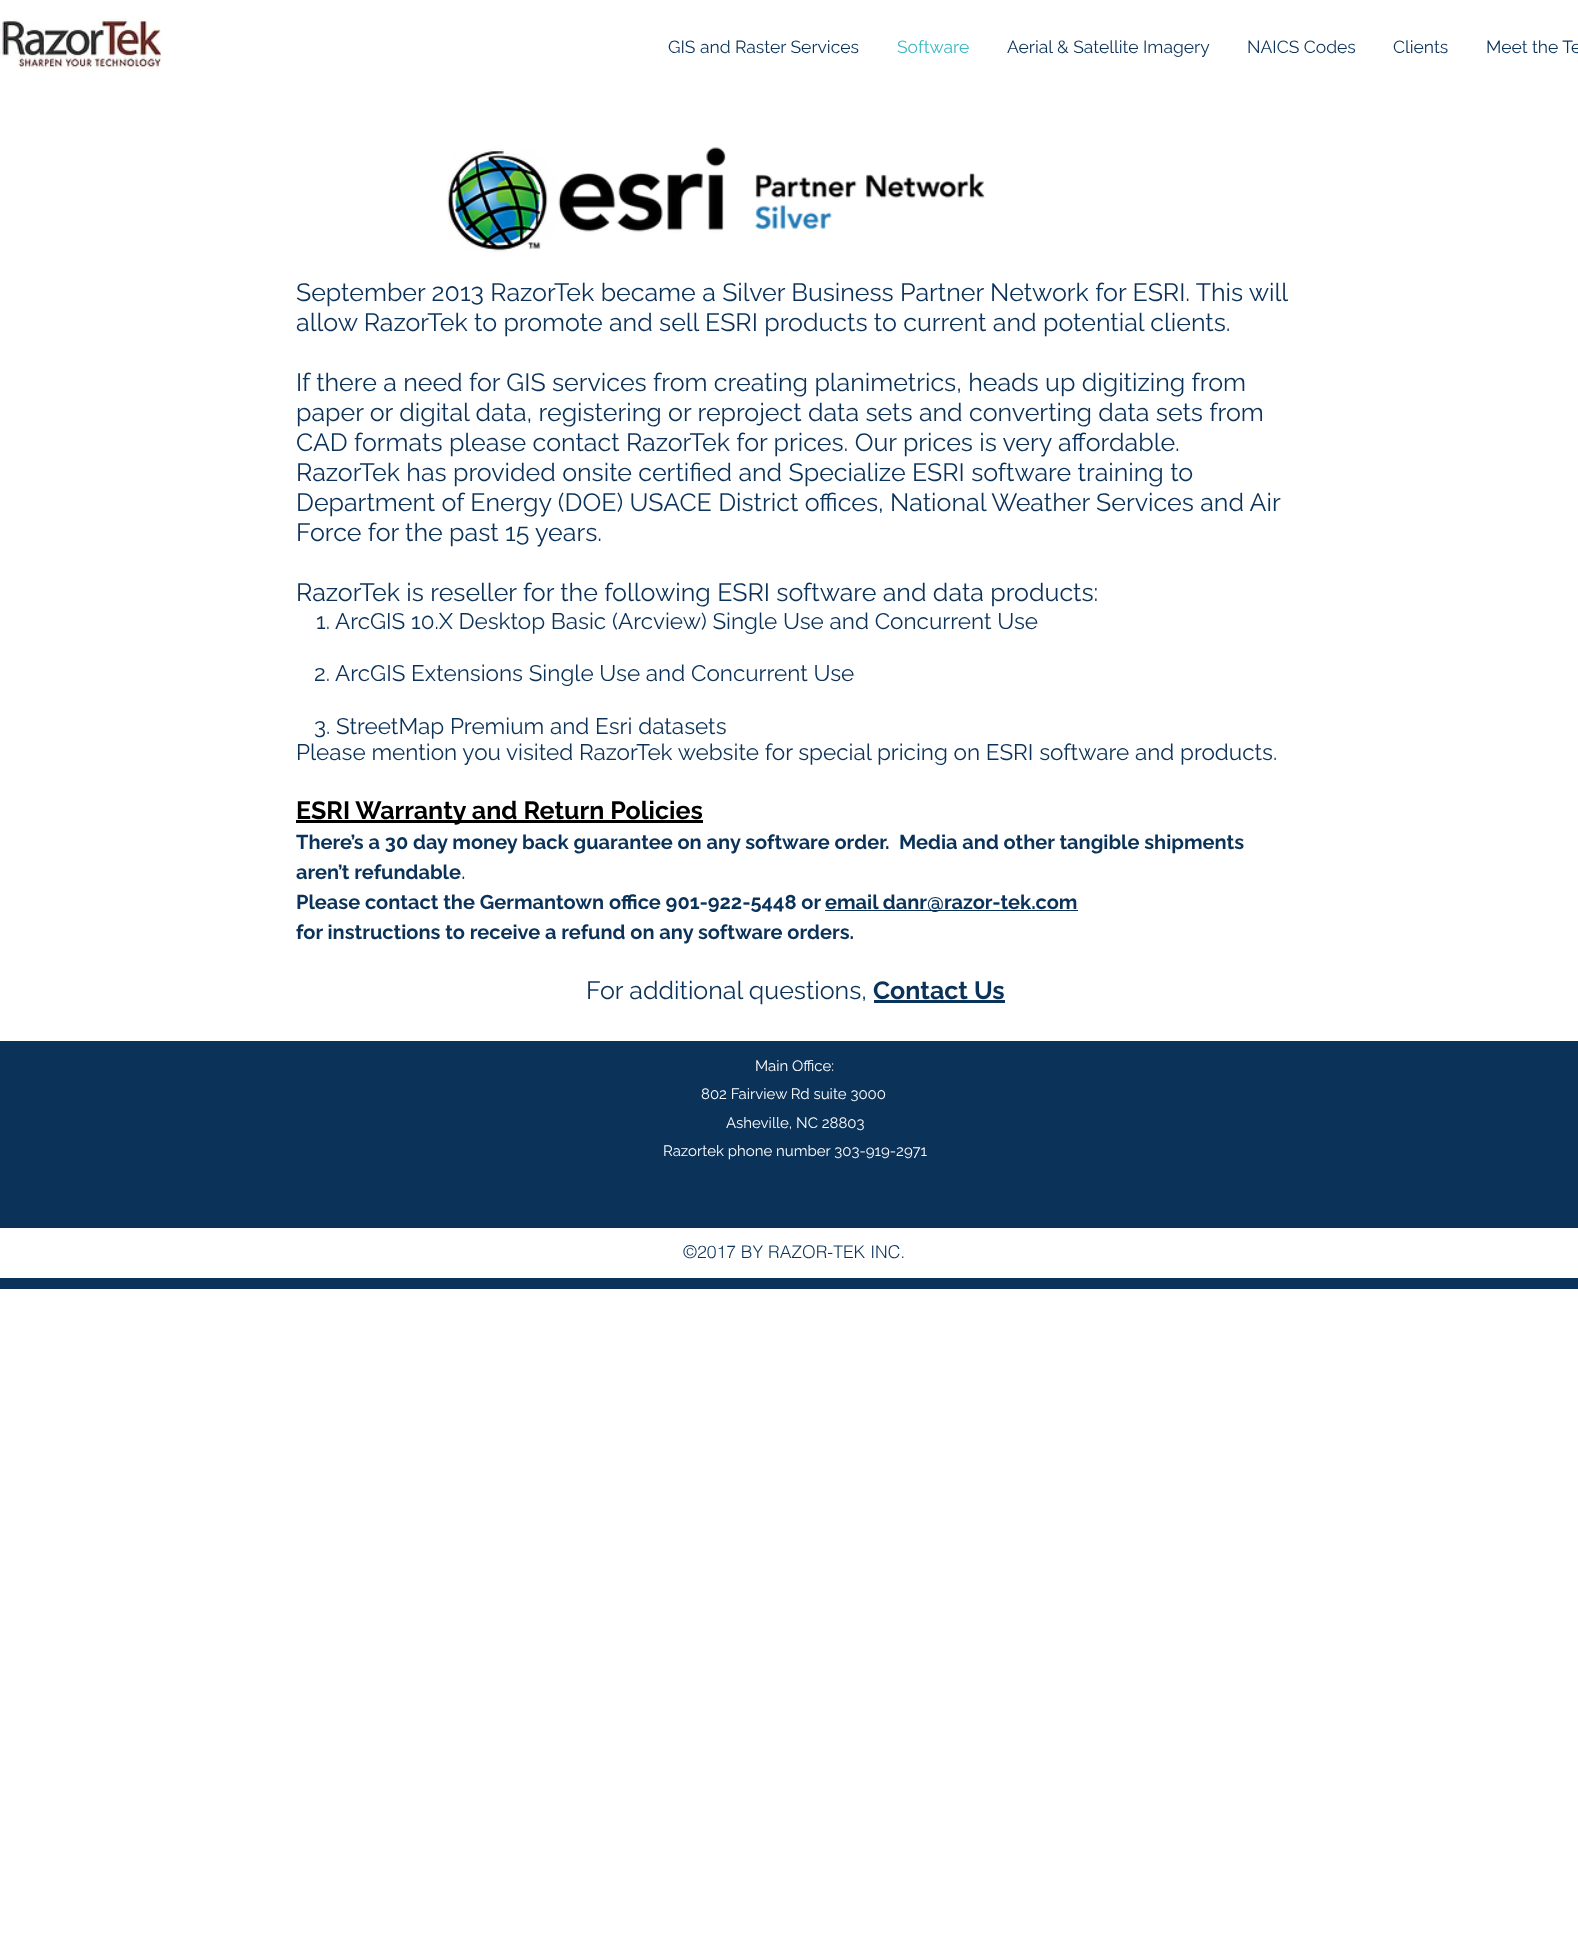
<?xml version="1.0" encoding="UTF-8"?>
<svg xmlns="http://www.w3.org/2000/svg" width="1578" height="1939">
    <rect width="100%" height="100%" fill="#FFFFFF"/>
    <image x="0" y="18" width="161" height="51" href="img_01.png"/>
    <text x="668" y="53" font-family="Raleway" font-size="17.5" fill="#0B3259">GIS and Raster Services</text>
    <text x="897" y="53" font-family="Raleway" font-size="17.5" fill="#41B7C4">Software</text>
    <text x="1007" y="53" font-family="Raleway" font-size="17.5" fill="#0B3259">Aerial &amp; Satellite Imagery</text>
    <text x="1247" y="53" font-family="Raleway" font-size="17.5" fill="#0B3259">NAICS Codes</text>
    <text x="1393" y="53" font-family="Raleway" font-size="17.5" fill="#0B3259">Clients</text>
    <text x="1486" y="53" font-family="Raleway" font-size="17.5" fill="#0B3259">Meet the Te</text>
    <image x="447" y="147" width="538" height="106" href="img_02.png"/>
    <text font-family="Raleway" font-size="25" fill="#0B3259">
        <tspan x="296" y="301">September 2013 RazorTek became a Silver Business Partner Network for ESRI. This will</tspan>
        <tspan x="296" y="331">allow RazorTek to promote and sell ESRI products to current and potential clients.</tspan>
    </text>
    <text font-family="Raleway" font-size="25" fill="#0B3259">
        <tspan x="296" y="391">If there a need for GIS services from creating planimetrics, heads up digitizing from</tspan>
        <tspan x="296" y="421">paper or digital data, registering or reproject data sets and converting data sets from</tspan>
        <tspan x="296" y="451">CAD formats please contact RazorTek for prices. Our prices is very affordable.</tspan>
        <tspan x="296" y="481">RazorTek has provided onsite certified and Specialize ESRI software training to</tspan>
        <tspan x="296" y="511">Department of Energy (DOE) USACE District offices, National Weather Services and Air</tspan>
        <tspan x="296" y="541">Force for the past 15 years.</tspan>
    </text>
    <text x="296" y="601" font-family="Raleway" font-size="25" fill="#0B3259">RazorTek is reseller for the following ESRI software and data products:</text>
    <text x="316" y="629" font-family="Raleway" font-size="22.5" fill="#0B3259">1. ArcGIS 10.X Desktop Basic (Arcview) Single Use and Concurrent Use</text>
    <text x="314" y="681" font-family="Raleway" font-size="22.5" fill="#0B3259">2. ArcGIS Extensions Single Use and Concurrent Use</text>
    <text x="314" y="734" font-family="Raleway" font-size="22.5" fill="#0B3259">3. StreetMap Premium and Esri datasets</text>
    <text x="296" y="760" font-family="Raleway" font-size="22.5" fill="#0B3259">Please mention you visited RazorTek website for special pricing on ESRI software and products.</text>
    <rect x="296" y="820" width="407" height="3" fill="#000000"/>
    <text x="296" y="819" font-family="Raleway" font-size="25" font-weight="700" fill="#000000">ESRI Warranty and Return Policies</text>
    <text font-family="Raleway" font-size="20" font-weight="700" fill="#0B3259" xml:space="preserve"><tspan x="296" y="849">There’s a 30 day money back guarantee on any software order.  Media and other tangible shipments</tspan><tspan x="296" y="879">aren’t refundable</tspan></text>
    <text x="461" y="879" font-family="Raleway" font-size="25" fill="#0B3259">.</text>
    <text x="296" y="909" font-family="Raleway" font-size="20" font-weight="700" fill="#0B3259">Please contact the Germantown office 901-922-5448 or</text>
    <rect x="825" y="910" width="253" height="1" fill="#0B3259"/>
    <text x="825" y="909" font-family="Raleway" font-size="20" font-weight="700" fill="#0B3259">email danr@razor-tek.com</text>
    <text x="296" y="939" font-family="Raleway" font-size="20" font-weight="700" fill="#0B3259">for instructions to receive a refund on any software orders.</text>
    <text x="586" y="999" font-family="Raleway" font-size="25" fill="#0B3259">For additional questions,</text>
    <text x="873" y="999" font-family="Raleway" font-size="25" font-weight="700" fill="#0B3259">Contact Us</text>
    <rect x="874" y="1000" width="131" height="3" fill="#0B3259"/>
    <rect x="0" y="1041" width="1578" height="248" fill="#0B3259"/>
    <text x="755" y="1071" font-family="Raleway" font-size="15" fill="#FFFFFF">Main Office:</text>
    <text x="701" y="1099" font-family="Raleway" font-size="15" fill="#FFFFFF">802 Fairview Rd suite 3000</text>
    <text x="726" y="1128" font-family="Raleway" font-size="15" fill="#FFFFFF">Asheville, NC 28803</text>
    <text x="663" y="1156" font-family="Raleway" font-size="15" fill="#FFFFFF">Razortek phone number 303-919-2971</text>
    <rect x="0" y="1228" width="1578" height="50" fill="#FFFFFF"/>
    <text x="683" y="1258" font-family="helvetica" font-size="17.5" font-weight="300" fill="#0B3259">©2017 BY RAZOR-TEK INC.</text>
</svg>
